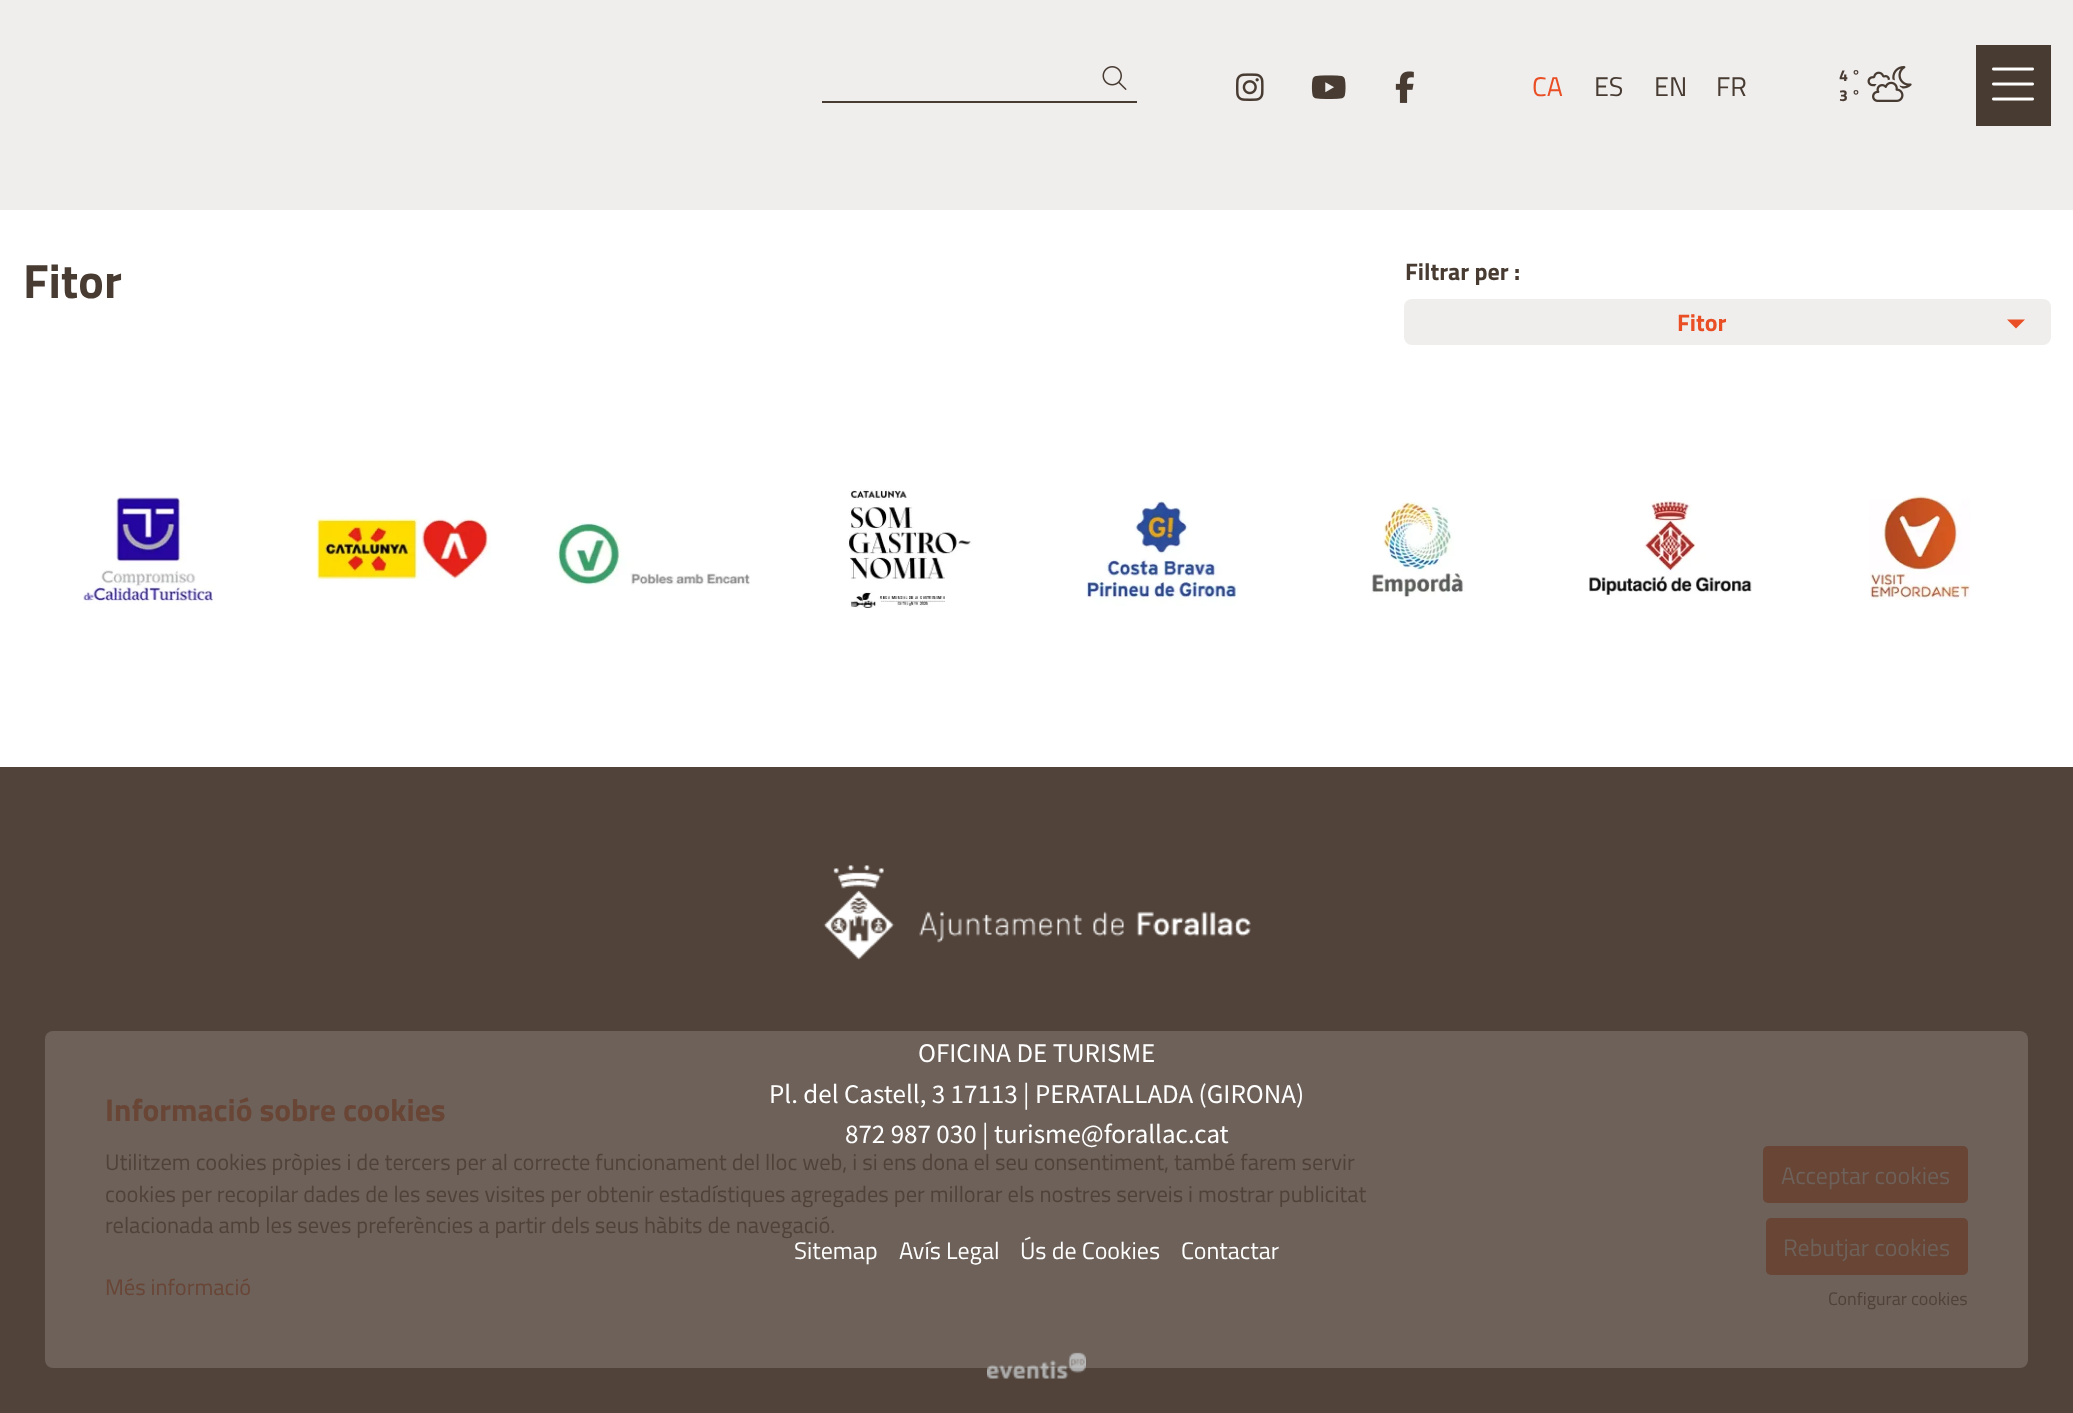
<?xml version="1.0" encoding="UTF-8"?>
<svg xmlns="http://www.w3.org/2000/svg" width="2073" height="1413">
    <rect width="100%" height="100%" fill="#FFFFFF"/>
    <rect x="0" y="0" width="2073" height="210" fill="#EFEEED"/>
    <image x="1102" y="66" width="25" height="24" href="img_01.png"/>
    <rect x="822" y="101" width="315" height="2" fill="#483B32"/>
    <image x="1236" y="73" width="28" height="28" href="img_02.png"/>
    <image x="1311" y="75" width="35" height="24" href="img_03.png"/>
    <image x="1395" y="71" width="19" height="32" href="img_04.png"/>
    <text x="1532" y="96" font-family="Titillium Web" font-size="27" fill="#E94E24">CA</text>
    <text x="1594" y="96" font-family="Titillium Web" font-size="27" fill="#483B32">ES</text>
    <text x="1654" y="96" font-family="Titillium Web" font-size="27" fill="#483B32">EN</text>
    <text x="1716" y="96" font-family="Titillium Web" font-size="27" fill="#483B32">FR</text>
    <rect x="1976" y="45" width="75" height="81" fill="#483B32"/>
    <image x="1992" y="67" width="42" height="34" href="img_05.png"/>
    <text font-family="Titillium Web" font-size="16" font-weight="700" fill="#483B32">
        <tspan x="1839" y="81">4 °</tspan>
        <tspan x="1839" y="101">3 °</tspan>
    </text>
    <image x="1867" y="66" width="45" height="36" href="img_06.png"/>
    <text x="23" y="298" font-family="Titillium Web" font-size="48" font-weight="700" fill="#483B32">Fitor</text>
    <text x="1405" y="280" font-family="Titillium Web" font-size="24" font-weight="700" fill="#483B32">Filtrar per :</text>
    <rect x="1404" y="299" width="647" height="46" rx="8" fill="#EFEEED"/>
    <text x="1677" y="331" font-family="Titillium Web" font-size="24" font-weight="700" fill="#E94E24">Fitor</text>
    <path d="M 2007 319.5 H 2025 L 2016 328.5 Z" fill="#E94E24"/>
    <image x="83" y="496" width="133" height="108" href="img_07.png"/>
    <image x="315" y="516" width="176" height="65" href="img_08.png"/>
    <image x="556" y="523" width="194" height="63" href="img_09.png"/>
    <image x="847" y="489" width="125" height="119" href="img_10.png"/>
    <image x="1086" y="500" width="152" height="106" href="img_11.png"/>
    <image x="1371" y="502" width="94" height="96" href="img_12.png"/>
    <image x="1589" y="500" width="163" height="95" href="img_13.png"/>
    <image x="1869" y="495" width="101" height="105" href="img_14.png"/>
    <rect x="0" y="767" width="2073" height="646" fill="#51433A"/>
    <image x="823" y="865" width="428" height="95" href="img_15.png"/>
    <text x="918" y="1062" font-family="Source Sans Pro" font-size="27" fill="#FFFFFF">OFICINA DE TURISME</text>
    <text x="769" y="1103" font-family="Source Sans Pro" font-size="27" fill="#FFFFFF">Pl. del Castell, 3 17113 | PERATALLADA (GIRONA)</text>
    <text x="845" y="1143" font-family="Source Sans Pro" font-size="27" fill="#FFFFFF">872 987 030 | turisme@forallac.cat</text>
    <text x="794" y="1259" font-family="Titillium Web" font-size="24" fill="#FFFFFF">Sitemap</text>
    <text x="899" y="1259" font-family="Titillium Web" font-size="24" fill="#FFFFFF">Avís Legal</text>
    <text x="1020" y="1259" font-family="Titillium Web" font-size="24" fill="#FFFFFF">Ús de Cookies</text>
    <text x="1181" y="1259" font-family="Titillium Web" font-size="24" fill="#FFFFFF">Contactar</text>
    <image x="987" y="1352" width="99" height="27" href="img_16.png"/>
    <rect x="45" y="1031" width="1983" height="337" rx="8" fill="#FFFFFF" fill-opacity="0.16"/>
    <text x="105" y="1121" font-family="Titillium Web" font-size="31.5" font-weight="700" fill="#694536">Informació sobre cookies</text>
    <text font-family="Titillium Web" font-size="22.5" fill="#504239">
        <tspan x="105" y="1170">Utilitzem cookies pròpies i de tercers per al correcte funcionament del lloc web, i si ens dona el seu consentiment, també farem servir</tspan>
        <tspan x="105" y="1202">cookies per recopilar dades de les seves visites per obtenir estadístiques agregades per millorar els nostres serveis i mostrar publicitat</tspan>
        <tspan x="105" y="1233">relacionada amb les seves preferències a partir dels seus hàbits de navegació.</tspan>
    </text>
    <text x="105" y="1295" font-family="Titillium Web" font-size="22.5" fill="#694536">Més informació</text>
    <rect x="1763" y="1146" width="205" height="57" rx="5" fill="#694536"/>
    <text x="1781" y="1184" font-family="Titillium Web" font-size="24" fill="#6D6159">Acceptar cookies</text>
    <rect x="1766" y="1218" width="202" height="57" rx="5" fill="#694536"/>
    <text x="1783" y="1256" font-family="Titillium Web" font-size="24" fill="#6D6159">Rebutjar cookies</text>
    <text x="1828" y="1305" font-family="Titillium Web" font-size="18" fill="#504239">Configurar cookies</text>
</svg>
